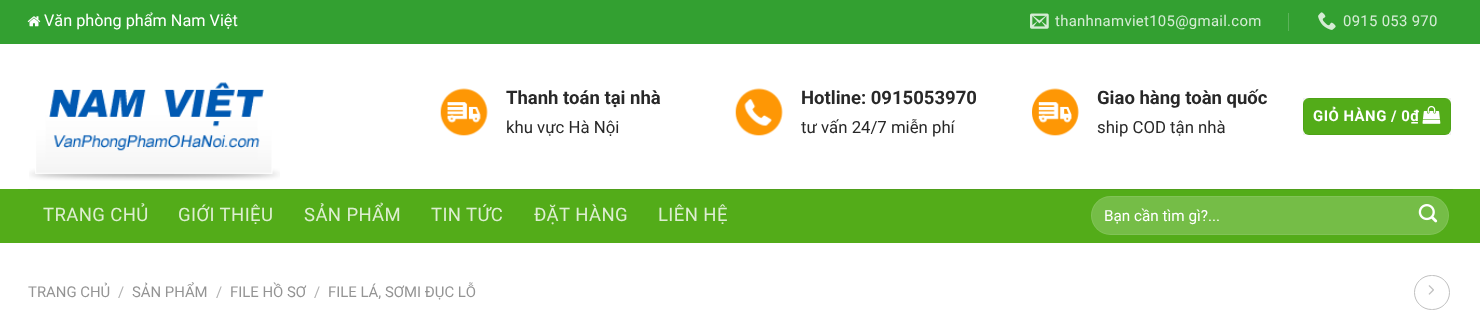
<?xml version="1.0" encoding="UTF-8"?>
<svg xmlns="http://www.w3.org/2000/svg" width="1480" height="334">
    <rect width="100%" height="100%" fill="#FFFFFF"/>
    <rect x="0" y="0" width="1480" height="44" fill="#33A031"/>
    <image x="27" y="16" width="14" height="11" href="img_01.png"/>
    <text x="44" y="26" font-family="Roboto" font-size="16.25" fill="#FFFFFF">Văn phòng phẩm Nam Việt</text>
    <image x="1030" y="13" width="19" height="16" href="img_02.png"/>
    <text x="1055" y="26" font-family="Roboto" font-size="14.9" letter-spacing="0.3" fill="#D6ECD6">thanhnamviet105@gmail.com</text>
    <rect x="1288" y="13" width="1" height="18" fill="#5CB35A"/>
    <image x="1318" y="12" width="18" height="18" href="img_03.png"/>
    <text x="1343" y="26" font-family="Roboto" font-size="14.9" letter-spacing="0.3" fill="#D6ECD6">0915 053 970</text>
    <image x="29" y="82" width="251" height="99" href="img_04.png"/>
    <image x="440" y="88" width="48" height="48" href="img_05.png"/>
    <text x="506" y="104" font-family="Roboto" font-size="18.5" font-weight="700" fill="#282828">Thanh toán tại nhà</text>
    <text x="506" y="133" font-family="Roboto" font-size="16.75" fill="#282828">khu vực Hà Nội</text>
    <image x="735" y="88" width="48" height="48" href="img_06.png"/>
    <text x="801" y="104" font-family="Roboto" font-size="18.5" font-weight="700" fill="#282828">Hotline: 0915053970</text>
    <text x="801" y="133" font-family="Roboto" font-size="16.75" fill="#282828">tư vấn 24/7 miễn phí</text>
    <image x="1032" y="88" width="47" height="48" href="img_07.png"/>
    <text x="1097" y="104" font-family="Roboto" font-size="18.5" font-weight="700" fill="#282828">Giao hàng toàn quốc</text>
    <text x="1097" y="133" font-family="Roboto" font-size="16.75" fill="#282828">ship COD tận nhà</text>
    <rect x="1303" y="98" width="148" height="37" rx="6" fill="#53AC19"/>
    <rect x="1303.5" y="98.5" width="147" height="36" fill="none" stroke="#000000" stroke-opacity="0.05"/>
    <text x="1313" y="121" font-family="Roboto" font-size="14.9" font-weight="700" letter-spacing="0.5" fill="#FFFFFF">GIỎ HÀNG / 0₫</text>
    <image x="1422" y="105" width="19" height="19" href="img_08.png"/>
    <rect x="0" y="189" width="1480" height="54" fill="#53AC19"/>
    <rect x="28" y="189" width="1425" height="1" fill="#4F9F1B"/>
    <text x="43" y="221" font-family="Roboto" font-size="18.5" letter-spacing="0.4" fill="#DDEED1">TRANG CHỦ</text>
    <text x="178" y="221" font-family="Roboto" font-size="18.5" letter-spacing="0.4" fill="#DDEED1">GIỚI THIỆU</text>
    <text x="304" y="221" font-family="Roboto" font-size="18.5" letter-spacing="0.4" fill="#DDEED1">SẢN PHẨM</text>
    <text x="431" y="221" font-family="Roboto" font-size="18.5" letter-spacing="0.4" fill="#DDEED1">TIN TỨC</text>
    <text x="534" y="221" font-family="Roboto" font-size="18.5" letter-spacing="0.4" fill="#DDEED1">ĐẶT HÀNG</text>
    <text x="658" y="221" font-family="Roboto" font-size="18.5" letter-spacing="0.4" fill="#DDEED1">LIÊN HỆ</text>
    <rect x="1091" y="196" width="358" height="39" rx="19.5" fill="#75BD47"/>
    <rect x="1091.5" y="196.5" width="357" height="38" rx="19" fill="none" stroke="#FFFFFF" stroke-opacity="0.09"/>
    <text x="1104" y="221" font-family="Roboto" font-size="15.25" fill="#FFFFFF">Bạn cần tìm gì?...</text>
    <image x="1418" y="204" width="20" height="19" href="img_09.png"/>
    <text x="28" y="297" font-family="Roboto" font-size="14.9" fill="#949494">TRANG CHỦ</text>
    <text x="118" y="297" font-family="Roboto" font-size="14.9" fill="#B2B2B2">/</text>
    <text x="132" y="297" font-family="Roboto" font-size="14.9" fill="#949494">SẢN PHẨM</text>
    <text x="216" y="297" font-family="Roboto" font-size="14.9" fill="#B2B2B2">/</text>
    <text x="230" y="297" font-family="Roboto" font-size="14.9" fill="#949494">FILE HỒ SƠ</text>
    <text x="314" y="297" font-family="Roboto" font-size="14.9" fill="#B2B2B2">/</text>
    <text x="328" y="297" font-family="Roboto" font-size="14.9" fill="#949494">FILE LÁ, SƠMI ĐỤC LỖ</text>
    <rect x="1414.5" y="275.5" width="35" height="34" rx="17" fill="none" stroke="#C0C0C0"/>
    <image x="1428" y="285" width="6" height="10" href="img_10.png"/>
</svg>
